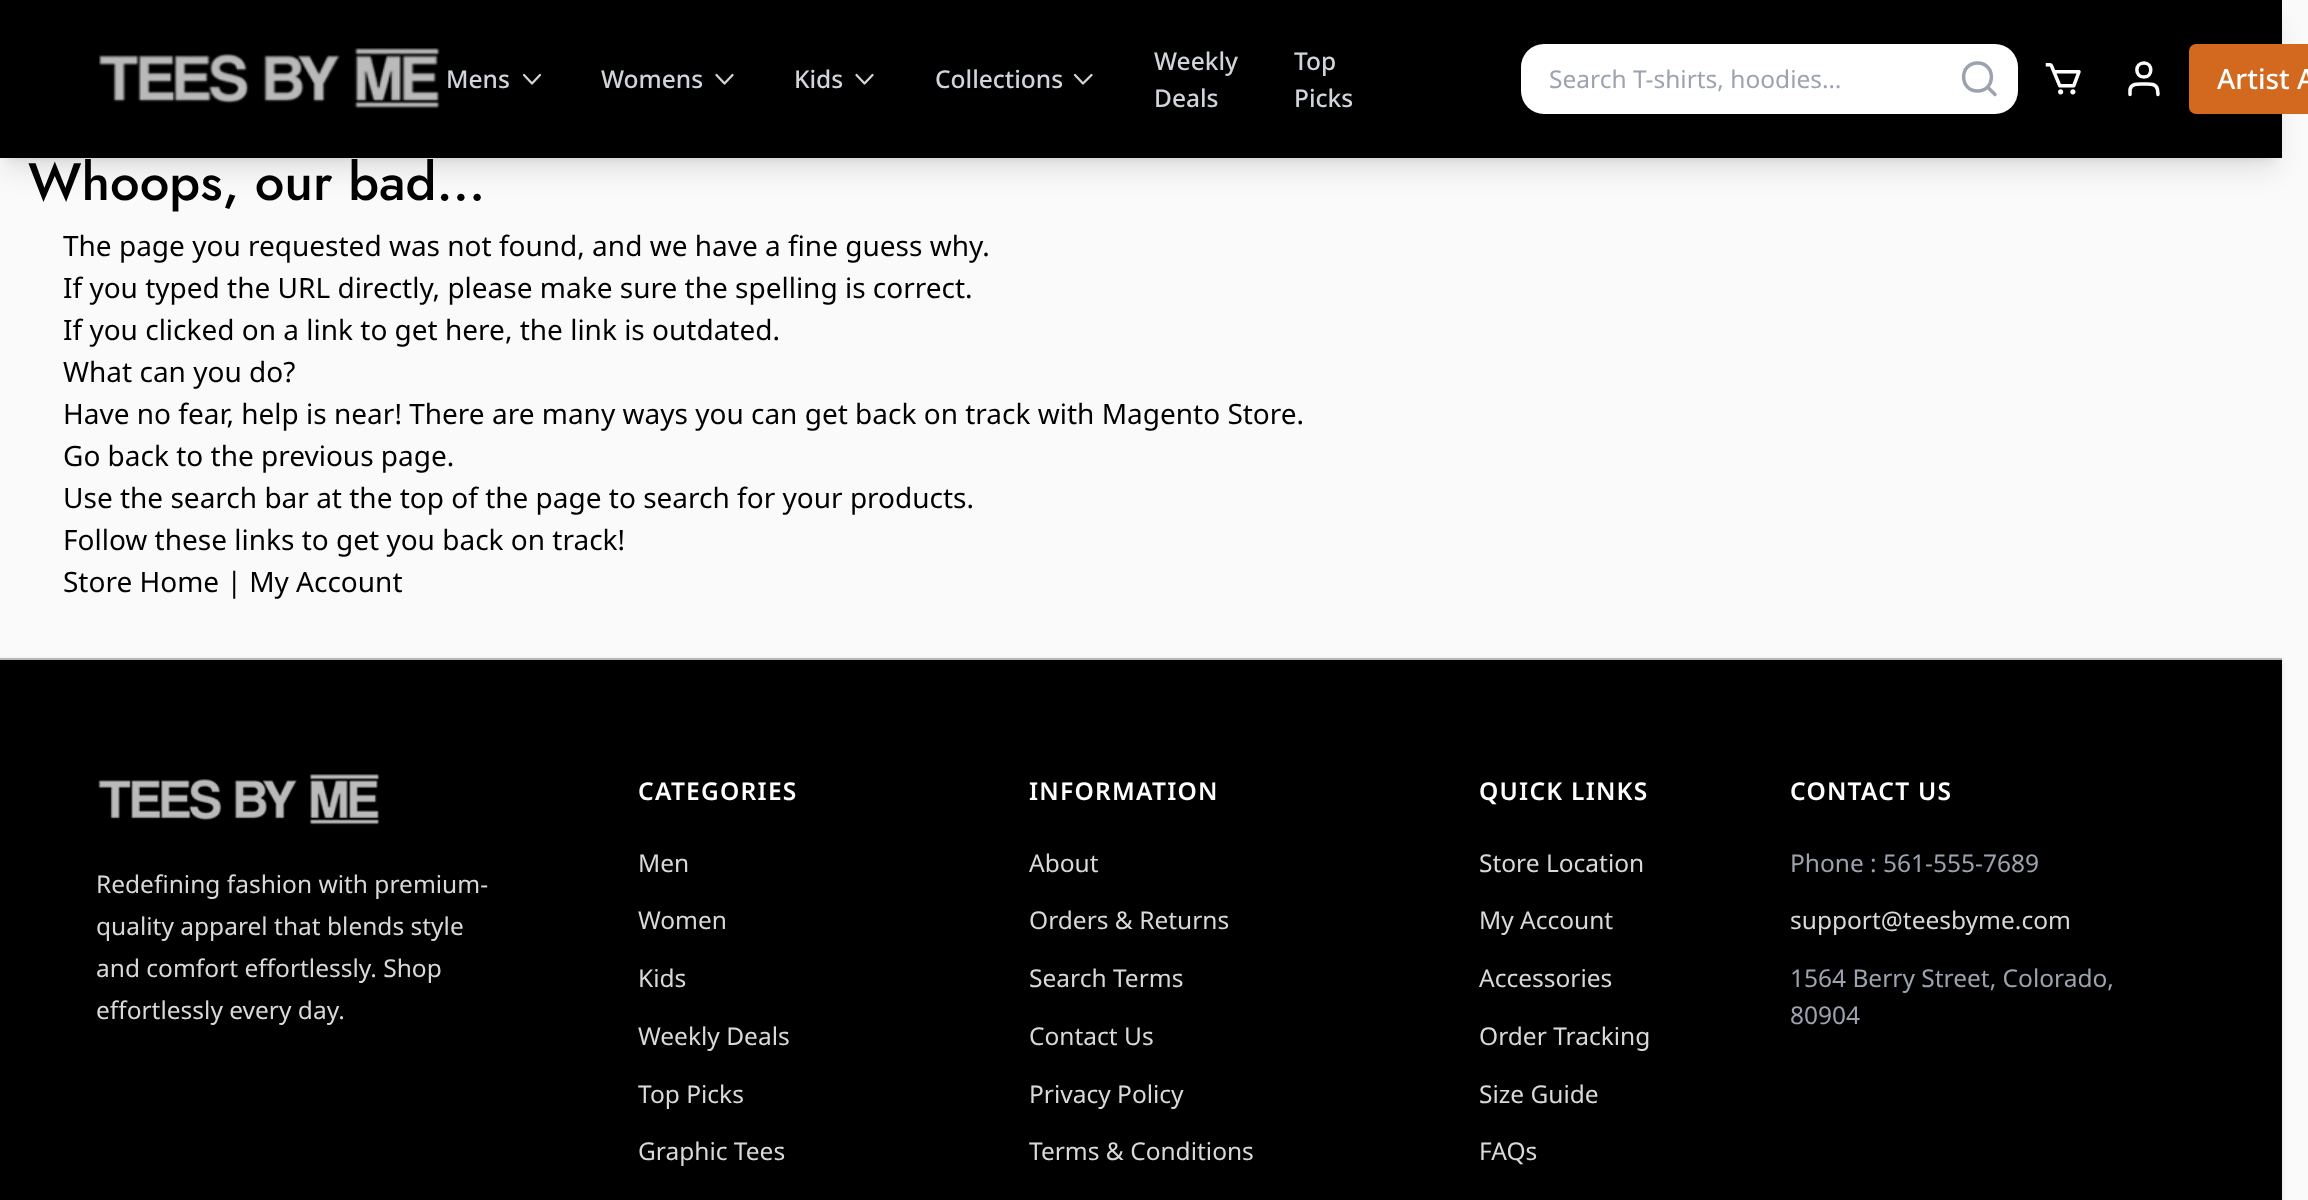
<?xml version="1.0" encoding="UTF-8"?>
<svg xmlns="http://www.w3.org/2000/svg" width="2308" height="1200">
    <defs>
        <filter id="blur1" x="-50%" y="-200%" width="200%" height="500%"><feGaussianBlur stdDeviation="5"/></filter>
        <filter id="blur2" x="-50%" y="-200%" width="200%" height="500%"><feGaussianBlur stdDeviation="13"/></filter>
        <filter id="blur3" x="-50%" y="-200%" width="200%" height="500%"><feGaussianBlur stdDeviation="2.5"/></filter>
    </defs>
    <rect width="100%" height="100%" fill="#FAFAFA"/>
    <rect x="7" y="14" width="2268" height="144" fill="#000000" fill-opacity="0.1" filter="url(#blur1)"/>
    <rect x="5" y="23" width="2272" height="147" fill="#000000" fill-opacity="0.1" filter="url(#blur2)"/>
    <rect x="0" y="0" width="2282" height="158" fill="#000000"/>
    <image x="99" y="48" width="341" height="61" href="img_01.png"/>
    <text x="446" y="88" font-family="Noto Sans" font-size="24.5" font-weight="500" fill="#D1D5DB">Mens</text>
    <path d="M 540 75 L 532 83.5 L 524 75" fill="none" stroke="#D1D5DB" stroke-width="2.3" stroke-linecap="round" stroke-linejoin="round"/>
    <text x="601" y="88" font-family="Noto Sans" font-size="24.5" font-weight="500" fill="#D1D5DB">Womens</text>
    <path d="M 732.5 75 L 724.5 83.5 L 716.5 75" fill="none" stroke="#D1D5DB" stroke-width="2.3" stroke-linecap="round" stroke-linejoin="round"/>
    <text x="794" y="88" font-family="Noto Sans" font-size="24.5" font-weight="500" fill="#D1D5DB">Kids</text>
    <path d="M 872.5 75 L 864.5 83.5 L 856.5 75" fill="none" stroke="#D1D5DB" stroke-width="2.3" stroke-linecap="round" stroke-linejoin="round"/>
    <text x="935" y="88" font-family="Noto Sans" font-size="24.5" font-weight="500" fill="#D1D5DB">Collections</text>
    <path d="M 1091.5 75 L 1083 83.5 L 1075 75" fill="none" stroke="#D1D5DB" stroke-width="2.3" stroke-linecap="round" stroke-linejoin="round"/>
    <text font-family="Noto Sans" font-size="24.5" font-weight="500" fill="#D1D5DB">
        <tspan x="1154" y="70">Weekly</tspan>
        <tspan x="1154" y="107">Deals</tspan>
    </text>
    <text font-family="Noto Sans" font-size="24.5" font-weight="500" fill="#D1D5DB">
        <tspan x="1294" y="70">Top</tspan>
        <tspan x="1294" y="107">Picks</tspan>
    </text>
    <rect x="1521" y="44" width="497" height="70" rx="23" fill="#FFFFFF"/>
    <text x="1549" y="88" font-family="Noto Sans" font-size="24.5" fill="#9CA3AF">Search T-shirts, hoodies…</text>
    <path d="M 1977.5 91 C 1996 91 1996 63 1977.5 63 C 1959 63 1959 91 1977.5 91 Z M 1995 94.5 L 1987.5 87" fill="none" stroke="#9CA3AF" stroke-width="3.5" stroke-linecap="round" stroke-linejoin="round"/>
    <image x="2045" y="63" width="36" height="32" href="img_02.png"/>
    <path d="M 2158 94.5 L 2157.5 89.5 C 2156 83 2149 84 2144 84 C 2138.5 84 2131.5 83 2130 89.5 V 94.5 M 2144 77 C 2153 77 2153 63 2144 63 C 2134.5 63 2134.5 77 2144 77 Z" fill="none" stroke="#FFFFFF" stroke-width="3.5" stroke-linecap="round" stroke-linejoin="round"/>
    <rect x="2189" y="44" width="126" height="70" rx="7" fill="#D2691E"/>
    <text x="2217" y="89" font-family="Noto Sans" font-size="28" font-weight="500" fill="#FFFFFF">Artist A</text>
    <text x="28" y="200" font-family="Jost" font-size="52.5" font-weight="500" fill="#000000">Whoops, our bad...</text>
    <text font-family="Noto Sans" font-size="28" fill="#000000">
        <tspan x="63" y="256">The page you requested was not found, and we have a fine guess why.</tspan>
        <tspan x="63" y="298">If you typed the URL directly, please make sure the spelling is correct.</tspan>
        <tspan x="63" y="340">If you clicked on a link to get here, the link is outdated.</tspan>
        <tspan x="63" y="382">What can you do?</tspan>
        <tspan x="63" y="424">Have no fear, help is near! There are many ways you can get back on track with Magento Store.</tspan>
        <tspan x="63" y="466">Go back to the previous page.</tspan>
        <tspan x="63" y="508">Use the search bar at the top of the page to search for your products.</tspan>
        <tspan x="63" y="550">Follow these links to get you back on track!</tspan>
        <tspan x="63" y="592">Store Home | My Account</tspan>
    </text>
    <rect x="0" y="660" width="2282" height="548" fill="#000000" fill-opacity="0.1" filter="url(#blur3)"/>
    <rect x="0" y="658" width="2282" height="2" fill="#B6B6B6"/>
    <rect x="0" y="660" width="2282" height="540" fill="#000000"/>
    <image x="98" y="774" width="281" height="51" href="img_03.png"/>
    <text font-family="Noto Sans" font-size="24.5" fill="#D9D9D9">
        <tspan x="96" y="893">Redefining fashion with premium-</tspan>
        <tspan x="96" y="935">quality apparel that blends style</tspan>
        <tspan x="96" y="977">and comfort effortlessly. Shop</tspan>
        <tspan x="96" y="1019">effortlessly every day.</tspan>
    </text>
    <text x="638" y="800" font-family="Noto Sans" font-size="24.5" font-weight="600" letter-spacing="1.25" fill="#FFFFFF">CATEGORIES</text>
    <text x="638" y="872" font-family="Noto Sans" font-size="24.5" fill="#D9D9D9">Men</text>
    <text x="638" y="929" font-family="Noto Sans" font-size="24.5" fill="#D9D9D9">Women</text>
    <text x="638" y="987" font-family="Noto Sans" font-size="24.5" fill="#D9D9D9">Kids</text>
    <text x="638" y="1045" font-family="Noto Sans" font-size="24.5" fill="#D9D9D9">Weekly Deals</text>
    <text x="638" y="1103" font-family="Noto Sans" font-size="24.5" fill="#D9D9D9">Top Picks</text>
    <text x="638" y="1160" font-family="Noto Sans" font-size="24.5" fill="#D9D9D9">Graphic Tees</text>
    <text x="1029" y="800" font-family="Noto Sans" font-size="24.5" font-weight="600" letter-spacing="1.25" fill="#FFFFFF">INFORMATION</text>
    <text x="1029" y="872" font-family="Noto Sans" font-size="24.5" fill="#D9D9D9">About</text>
    <text x="1029" y="929" font-family="Noto Sans" font-size="24.5" fill="#D9D9D9">Orders &amp; Returns</text>
    <text x="1029" y="987" font-family="Noto Sans" font-size="24.5" fill="#D9D9D9">Search Terms</text>
    <text x="1029" y="1045" font-family="Noto Sans" font-size="24.5" fill="#D9D9D9">Contact Us</text>
    <text x="1029" y="1103" font-family="Noto Sans" font-size="24.5" fill="#D9D9D9">Privacy Policy</text>
    <text x="1029" y="1160" font-family="Noto Sans" font-size="24.5" fill="#D9D9D9">Terms &amp; Conditions</text>
    <text x="1479" y="800" font-family="Noto Sans" font-size="24.5" font-weight="600" letter-spacing="1.25" fill="#FFFFFF">QUICK LINKS</text>
    <text x="1479" y="872" font-family="Noto Sans" font-size="24.5" fill="#D9D9D9">Store Location</text>
    <text x="1479" y="929" font-family="Noto Sans" font-size="24.5" fill="#D9D9D9">My Account</text>
    <text x="1479" y="987" font-family="Noto Sans" font-size="24.5" fill="#D9D9D9">Accessories</text>
    <text x="1479" y="1045" font-family="Noto Sans" font-size="24.5" fill="#D9D9D9">Order Tracking</text>
    <text x="1479" y="1103" font-family="Noto Sans" font-size="24.5" fill="#D9D9D9">Size Guide</text>
    <text x="1479" y="1160" font-family="Noto Sans" font-size="24.5" fill="#D9D9D9">FAQs</text>
    <text x="1790" y="800" font-family="Noto Sans" font-size="24.5" font-weight="600" letter-spacing="1.25" fill="#FFFFFF">CONTACT US</text>
    <text x="1790" y="872" font-family="Noto Sans" font-size="24.5" fill="#9CA3AF">Phone : 561-555-7689</text>
    <text x="1790" y="929" font-family="Noto Sans" font-size="24.5" fill="#D9D9D9">support@teesbyme.com</text>
    <text font-family="Noto Sans" font-size="24.5" fill="#9CA3AF">
        <tspan x="1790" y="987">1564 Berry Street, Colorado,</tspan>
        <tspan x="1790" y="1024">80904</tspan>
    </text>
</svg>
